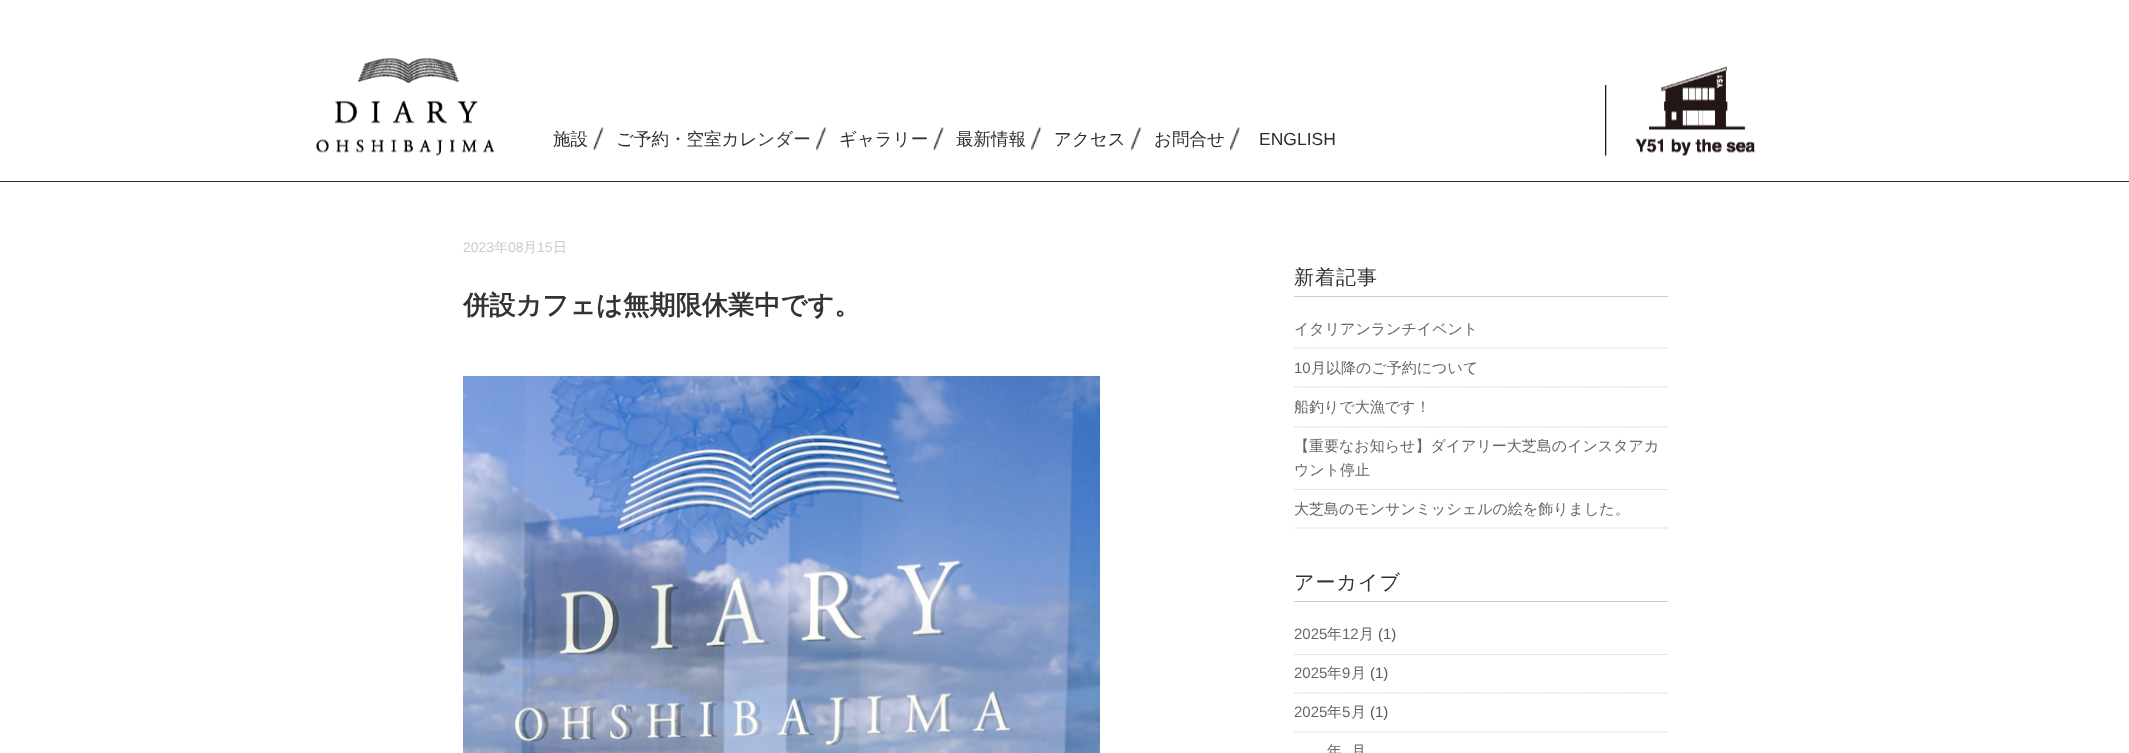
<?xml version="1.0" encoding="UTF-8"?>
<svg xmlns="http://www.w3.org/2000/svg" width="2129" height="753">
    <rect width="100%" height="100%" fill="#FFFFFF"/>
    <rect x="0" y="181" width="2129" height="1" fill="#2F2C2B"/>
    <image x="316" y="58" width="179" height="98" href="img_01.png"/>
    <image x="593" y="127" width="11" height="24" href="img_02.png"/>
    <text x="553" y="145" font-family="WenQuanYi Zen Hei" font-size="17.5" font-weight="500" fill="#2F2C2B">施設</text>
    <image x="816" y="127" width="11" height="24" href="img_03.png"/>
    <text x="616" y="145" font-family="WenQuanYi Zen Hei" font-size="17.5" font-weight="500" fill="#2F2C2B">ご予約</text>
    <text x="669" y="145" font-family="WenQuanYi Zen Hei" font-size="17.5" font-weight="500" fill="#333333">・空室カレンダー</text>
    <image x="933" y="127" width="11" height="24" href="img_04.png"/>
    <text x="839" y="145" font-family="WenQuanYi Zen Hei" font-size="17.5" font-weight="500" fill="#2F2C2B">ギャラリー</text>
    <image x="1031" y="127" width="11" height="24" href="img_03.png"/>
    <text x="956" y="145" font-family="WenQuanYi Zen Hei" font-size="17.5" font-weight="500" fill="#2F2C2B">最新情報</text>
    <image x="1131" y="127" width="11" height="24" href="img_03.png"/>
    <text x="1054" y="145" font-family="WenQuanYi Zen Hei" font-size="17.5" font-weight="500" fill="#2F2C2B">アクセス</text>
    <image x="1230" y="127" width="10" height="24" href="img_05.png"/>
    <text x="1154" y="145" font-family="WenQuanYi Zen Hei" font-size="17.5" font-weight="500" fill="#2F2C2B">お問合せ</text>
    <text x="1259" y="145" font-family="Liberation Sans" font-size="17.5" fill="#2F2C2B">ENGLISH</text>
    <image x="1605" y="84" width="2" height="73" href="img_06.png"/>
    <image x="1635" y="66" width="120" height="90" href="img_07.png"/>
    <text x="463" y="252" font-family="Liberation Sans" font-size="14" fill="#CCCCCC">2023</text>
    <text x="494" y="252" font-family="WenQuanYi Zen Hei" font-size="14" font-weight="500" fill="#CCCCCC">年</text>
    <text x="508" y="252" font-family="Liberation Sans" font-size="14" fill="#CCCCCC">08</text>
    <text x="523" y="252" font-family="WenQuanYi Zen Hei" font-size="14" font-weight="500" fill="#CCCCCC">月</text>
    <text x="537" y="252" font-family="Liberation Sans" font-size="14" fill="#CCCCCC">15</text>
    <text x="553" y="252" font-family="WenQuanYi Zen Hei" font-size="14" font-weight="500" fill="#CCCCCC">日</text>
    <text x="463" y="314" font-family="WenQuanYi Zen Hei" font-size="26.25" font-weight="700" fill="#333333">併設カフェは無期限休業中です。</text>
    <image x="463" y="376" width="637" height="377" href="img_08.png"/>
    <rect x="1294" y="296" width="374" height="1" fill="#CCCCCC"/>
    <text x="1294" y="284" font-family="WenQuanYi Zen Hei" font-size="20" font-weight="500" letter-spacing="1" fill="#333333">新着記事</text>
    <path d="M 1294 348 H 1667.5" fill="none" stroke="#CCCCCC" stroke-width="1.2" stroke-dasharray="1.25 1.25"/>
    <text x="1294" y="334" font-family="WenQuanYi Zen Hei" font-size="15" font-weight="500" fill="#666666">イタリアンランチイベント</text>
    <path d="M 1294 387 H 1667.5" fill="none" stroke="#CCCCCC" stroke-width="1.2" stroke-dasharray="1.25 1.25"/>
    <text x="1294" y="373" font-family="Liberation Sans" font-size="15" fill="#666666">10</text>
    <text x="1311" y="373" font-family="WenQuanYi Zen Hei" font-size="15" font-weight="500" fill="#666666">月以降のご予約について</text>
    <path d="M 1294 427 H 1667.5" fill="none" stroke="#CCCCCC" stroke-width="1.2" stroke-dasharray="1.25 1.25"/>
    <text x="1294" y="412" font-family="WenQuanYi Zen Hei" font-size="15" font-weight="500" fill="#666666">船釣りで大漁です！</text>
    <path d="M 1294 489.5 H 1667.5" fill="none" stroke="#CCCCCC" stroke-width="1.2" stroke-dasharray="1.25 1.25"/>
    <text font-family="WenQuanYi Zen Hei" font-size="15" font-weight="500" fill="#666666">
        <tspan x="1294" y="451">【重要なお知らせ】ダイアリー大芝島のインスタアカ</tspan>
        <tspan x="1294" y="475">ウント停止</tspan>
    </text>
    <path d="M 1294 528 H 1667.5" fill="none" stroke="#CCCCCC" stroke-width="1.2" stroke-dasharray="1.25 1.25"/>
    <text x="1294" y="514" font-family="WenQuanYi Zen Hei" font-size="15" font-weight="500" fill="#666666">大芝島のモンサンミッシェルの絵を飾りました。</text>
    <rect x="1294" y="601" width="374" height="1" fill="#CCCCCC"/>
    <text x="1294" y="589" font-family="WenQuanYi Zen Hei" font-size="20" font-weight="500" letter-spacing="1" fill="#333333">アーカイブ</text>
    <path d="M 1294 654.5 H 1667.5" fill="none" stroke="#CCCCCC" stroke-width="1.2" stroke-dasharray="1.25 1.25"/>
    <text x="1294" y="639" font-family="Liberation Sans" font-size="15" fill="#666666">2025</text>
    <text x="1327" y="639" font-family="WenQuanYi Zen Hei" font-size="15" font-weight="500" fill="#666666">年</text>
    <text x="1342" y="639" font-family="Liberation Sans" font-size="15" fill="#666666">12</text>
    <text x="1359" y="639" font-family="WenQuanYi Zen Hei" font-size="15" font-weight="500" fill="#666666">月</text>
    <text x="1378" y="639" font-family="Liberation Sans" font-size="15" fill="#595757">(1)</text>
    <path d="M 1294 693 H 1667.5" fill="none" stroke="#CCCCCC" stroke-width="1.2" stroke-dasharray="1.25 1.25"/>
    <text x="1294" y="678" font-family="Liberation Sans" font-size="15" fill="#666666">2025</text>
    <text x="1327" y="678" font-family="WenQuanYi Zen Hei" font-size="15" font-weight="500" fill="#666666">年</text>
    <text x="1342" y="678" font-family="Liberation Sans" font-size="15" fill="#666666">9</text>
    <text x="1351" y="678" font-family="WenQuanYi Zen Hei" font-size="15" font-weight="500" fill="#666666">月</text>
    <text x="1370" y="678" font-family="Liberation Sans" font-size="15" fill="#595757">(1)</text>
    <path d="M 1294 732 H 1667.5" fill="none" stroke="#CCCCCC" stroke-width="1.2" stroke-dasharray="1.25 1.25"/>
    <text x="1294" y="717" font-family="Liberation Sans" font-size="15" fill="#666666">2025</text>
    <text x="1327" y="717" font-family="WenQuanYi Zen Hei" font-size="15" font-weight="500" fill="#666666">年</text>
    <text x="1342" y="717" font-family="Liberation Sans" font-size="15" fill="#666666">5</text>
    <text x="1351" y="717" font-family="WenQuanYi Zen Hei" font-size="15" font-weight="500" fill="#666666">月</text>
    <text x="1370" y="717" font-family="Liberation Sans" font-size="15" fill="#595757">(1)</text>
    <text x="1327" y="756" font-family="WenQuanYi Zen Hei" font-size="15" font-weight="500" fill="#666666">年</text>
    <text x="1351" y="756" font-family="WenQuanYi Zen Hei" font-size="15" font-weight="500" fill="#666666">月</text>
</svg>
